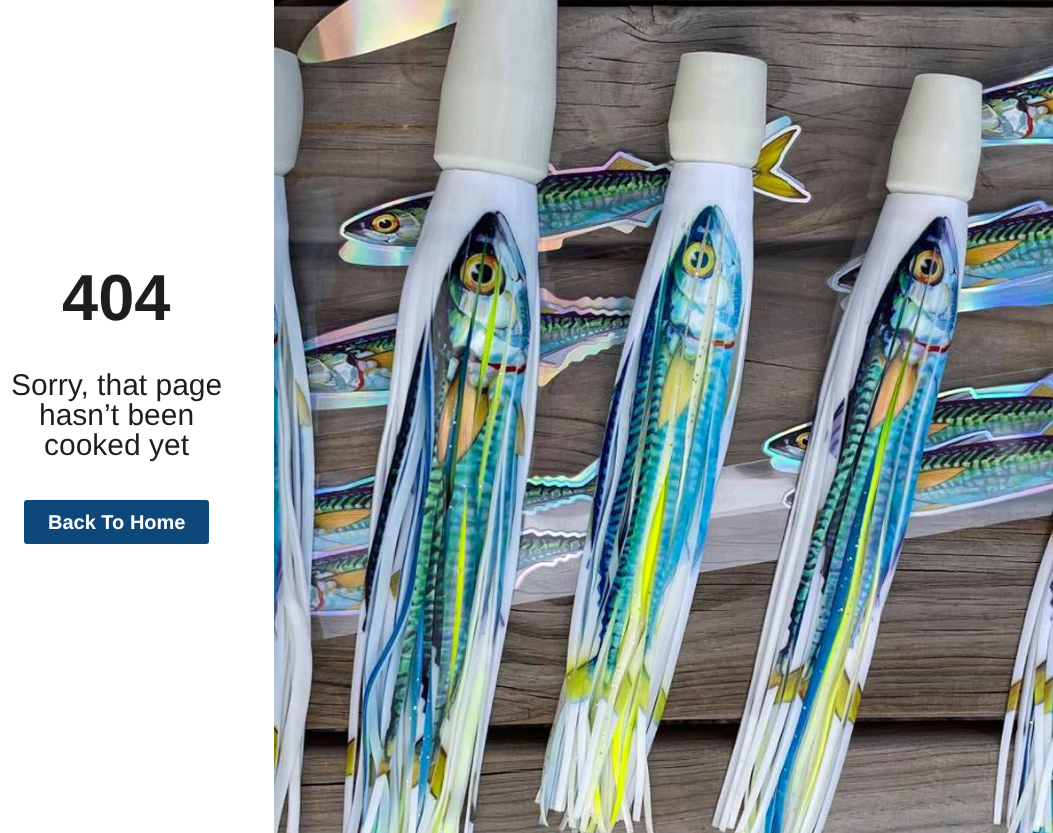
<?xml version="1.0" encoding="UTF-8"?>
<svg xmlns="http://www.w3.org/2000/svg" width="1053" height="833">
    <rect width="100%" height="100%" fill="#FFFFFF"/>
    <text x="62" y="320" font-family="Liberation Sans" font-size="65" font-weight="700" fill="#1E1E1E">404</text>
    <text x="11" y="395" font-family="Liberation Sans" font-size="30" fill="#1E1E1E">Sorry, that page</text>
    <text x="39" y="425" font-family="Liberation Sans" font-size="30" fill="#1E1E1E">hasn’t been</text>
    <text x="44" y="455" font-family="Liberation Sans" font-size="30" fill="#1E1E1E">cooked yet</text>
    <rect x="24" y="500" width="185" height="44" rx="3" fill="#0E477A"/>
    <text x="48" y="529" font-family="Liberation Sans" font-size="20" font-weight="700" fill="#FFFFFF">Back To Home</text>
    <image x="274" y="0" width="779" height="833" href="img_01.png"/>
</svg>
